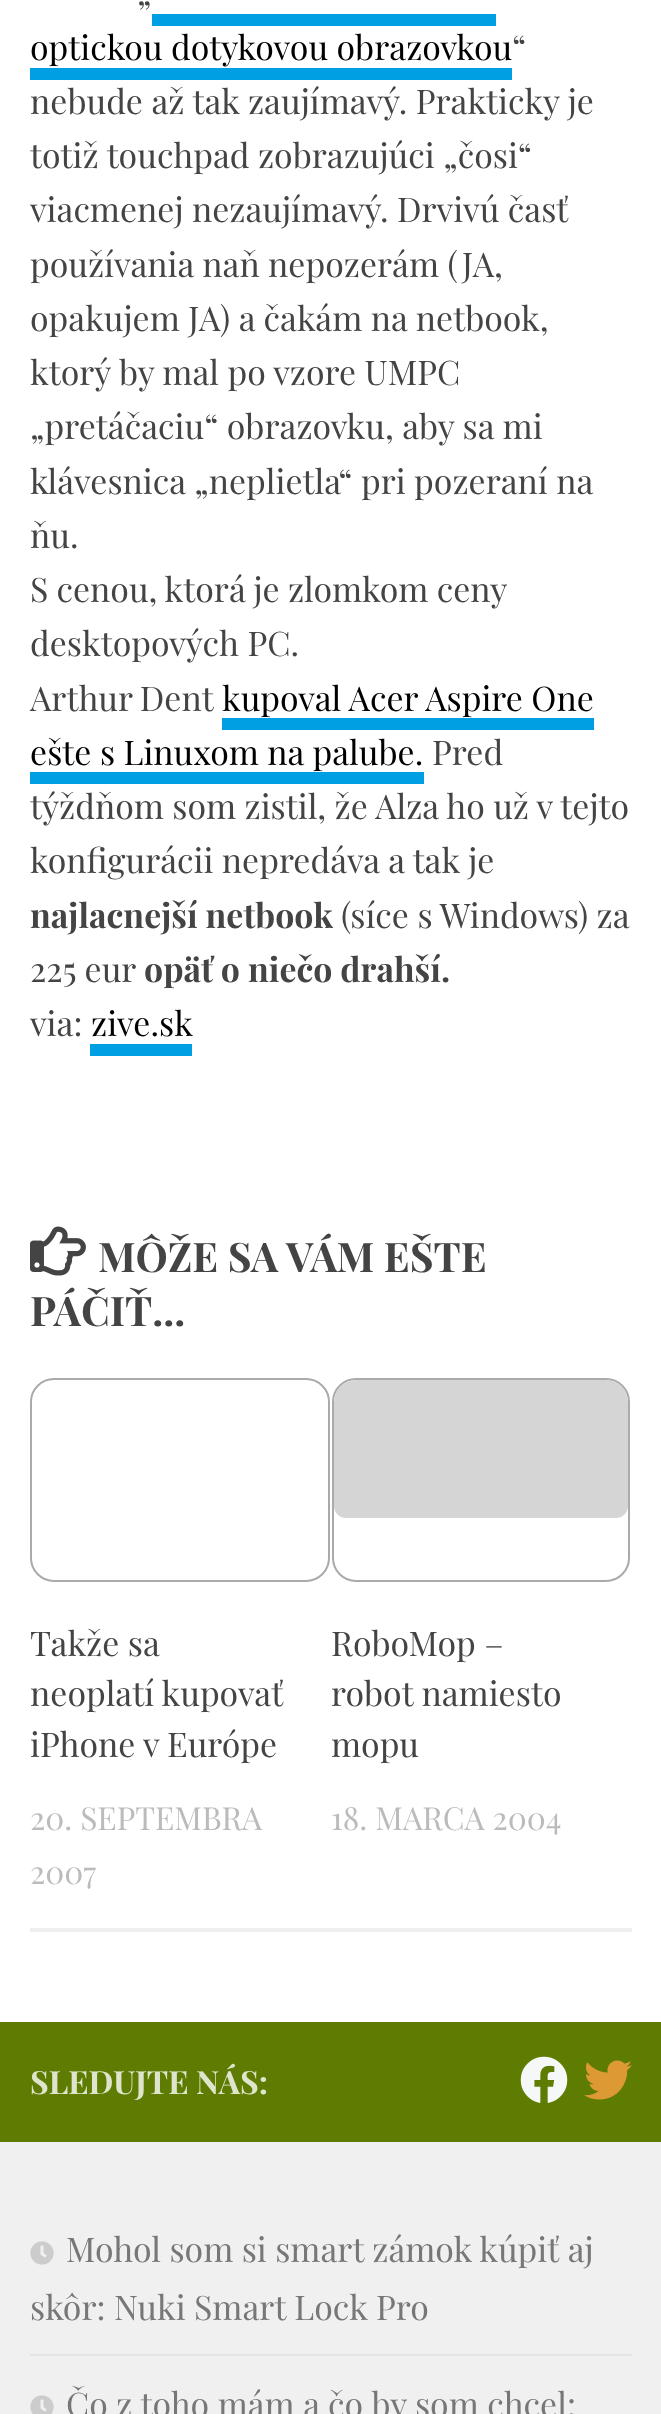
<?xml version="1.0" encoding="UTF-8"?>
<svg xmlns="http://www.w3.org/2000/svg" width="661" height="2414">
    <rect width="100%" height="100%" fill="#FFFFFF"/>
    <text x="137" y="5" font-family="Playfair Display" font-size="33.9" fill="#444444">„</text>
    <text x="30" y="60" font-family="Playfair Display" font-size="33.9" fill="#000000">optickou dotykovou obrazovkou</text>
    <rect x="152" y="14" width="344" height="12" fill="#009FE3"/>
    <rect x="30" y="68" width="482" height="12" fill="#009FE3"/>
    <text x="512" y="60" font-family="Playfair Display" font-size="33.9" fill="#444444">“</text>
    <text font-family="Playfair Display" font-size="33.9" fill="#444444">
        <tspan x="30" y="114">nebude až tak zaujímavý. Prakticky je</tspan>
        <tspan x="30" y="168">totiž touchpad zobrazujúci „čosi“</tspan>
        <tspan x="30" y="222">viacmenej nezaujímavý. Drvivú časť</tspan>
        <tspan x="30" y="277">používania naň nepozerám (JA,</tspan>
        <tspan x="30" y="331">opakujem JA) a čakám na netbook,</tspan>
        <tspan x="30" y="385">ktorý by mal po vzore UMPC</tspan>
        <tspan x="30" y="439">„pretáčaciu“ obrazovku, aby sa mi</tspan>
        <tspan x="30" y="494">klávesnica „neplietla“ pri pozeraní na</tspan>
        <tspan x="30" y="548">ňu.</tspan>
        <tspan x="30" y="602" word-spacing="-0.25">S cenou, ktorá je zlomkom ceny</tspan>
        <tspan x="30" y="656">desktopových PC.</tspan>
        <tspan x="30" y="711" word-spacing="-1">Arthur Dent</tspan>
    </text>
    <text x="222" y="711" font-family="Playfair Display" font-size="33.9" fill="#000000">kupoval Acer Aspire One</text>
    <rect x="222" y="718" width="372" height="12" fill="#009FE3"/>
    <text x="30" y="765" font-family="Playfair Display" font-size="33.9" fill="#000000">ešte s Linuxom na palube.</text>
    <rect x="30" y="772" width="394" height="12" fill="#009FE3"/>
    <text x="432" y="765" font-family="Playfair Display" font-size="33.9" fill="#444444">Pred</text>
    <text font-family="Playfair Display" font-size="33.9" fill="#444444">
        <tspan x="30" y="819">týždňom som zistil, že Alza ho už v tejto</tspan>
        <tspan x="30" y="873">konfigurácii nepredáva a tak je</tspan>
    </text>
    <text x="30" y="928" font-family="Playfair Display" font-size="33.9" font-weight="700" fill="#444444">najlacnejší netbook</text>
    <text x="341" y="928" font-family="Playfair Display" font-size="33.9" fill="#444444">(síce s Windows) za</text>
    <text x="30" y="982" font-family="Playfair Display" font-size="33.9" fill="#444444">225 eur</text>
    <text x="144" y="982" font-family="Playfair Display" font-size="33.9" font-weight="700" fill="#444444">opäť o niečo drahší.</text>
    <text x="30" y="1036" font-family="Playfair Display" font-size="33.9" fill="#444444">via:</text>
    <text x="91" y="1036" font-family="Playfair Display" font-size="33.9" fill="#000000">zive.sk</text>
    <rect x="90" y="1044" width="102" height="12" fill="#009FE3"/>
    <image x="30" y="1226" width="56" height="50" href="img_01.png"/>
    <text x="98" y="1272" font-family="Playfair Display" font-size="40.75" font-weight="700" fill="#444444">MÔŽE SA VÁM EŠTE</text>
    <text x="30" y="1326" font-family="Playfair Display" font-size="40.75" font-weight="700" fill="#444444">PÁČIŤ...</text>
    <rect x="30" y="1928" width="602" height="4" fill="#EEEEEE"/>
    <rect x="31" y="1379" width="298" height="202" rx="23" fill="none" stroke="#AAAAAA" stroke-width="2"/>
    <text font-family="Playfair Display" font-size="33.9" fill="#444444">
        <tspan x="30" y="1656">Takže sa</tspan>
        <tspan x="30" y="1706">neoplatí kupovať</tspan>
        <tspan x="30" y="1757">iPhone v Európe</tspan>
    </text>
    <text font-family="Playfair Display" font-size="31.75" fill="#BBBBBB">
        <tspan x="30" y="1830">20. SEPTEMBRA</tspan>
        <tspan x="30" y="1884">2007</tspan>
    </text>
    <rect x="333" y="1379" width="296" height="202" rx="23" fill="none" stroke="#AAAAAA" stroke-width="2"/>
    <image x="334" y="1380" width="294" height="138" href="img_02.png"/>
    <text font-family="Playfair Display" font-size="33.9" fill="#444444">
        <tspan x="331" y="1656">RoboMop –</tspan>
        <tspan x="331" y="1706">robot namiesto</tspan>
        <tspan x="331" y="1757">mopu</tspan>
    </text>
    <text x="331" y="1830" font-family="Playfair Display" font-size="31.75" fill="#BBBBBB">18. MARCA 2004</text>
    <rect x="0" y="2142" width="661" height="272" fill="#F0F0F0"/>
    <rect x="0" y="2022" width="661" height="120" fill="#5E7C01"/>
    <text x="30" y="2094" font-family="Playfair Display" font-size="32" font-weight="700" fill="#DFE5CC">SLEDUJTE NÁS:</text>
    <image x="520" y="2056" width="48" height="47" href="img_03.png"/>
    <image x="584" y="2060" width="48" height="40" href="img_04.png"/>
    <rect x="30" y="2354" width="602" height="2" fill="#E4E4E4"/>
    <image x="30" y="2241" width="24" height="24" href="img_05.png"/>
    <text x="66" y="2262" font-family="Playfair Display" font-size="33.9" fill="#777777">Mohol som si smart zámok kúpiť aj</text>
    <text x="30" y="2320" font-family="Playfair Display" font-size="33.9" fill="#777777">skôr: Nuki Smart Lock Pro</text>
    <image x="30" y="2395" width="24" height="19" href="img_06.png"/>
    <text x="66" y="2417" font-family="Playfair Display" font-size="33.9" fill="#777777">Čo z toho mám a čo by som chcel:</text>
</svg>
